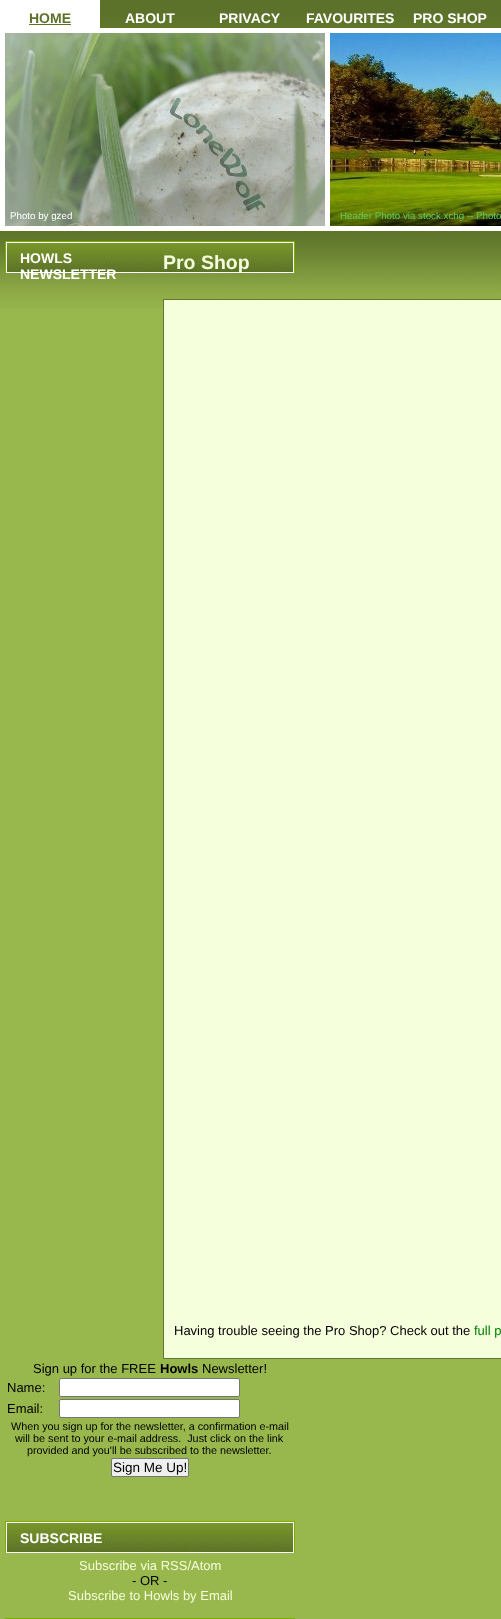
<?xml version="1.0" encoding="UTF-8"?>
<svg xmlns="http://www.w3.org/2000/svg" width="501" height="1619">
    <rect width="100%" height="100%" fill="#FFFFFF"/>
    <image x="100" y="0" width="401" height="28" href="img_01.png"/>
    <text x="29" y="23" font-family="Liberation Sans" font-size="14" font-weight="700" fill="#5C722A">HOME</text>
    <rect x="29" y="24" width="42" height="1" fill="#5C722A"/>
    <text x="125" y="23" font-family="Liberation Sans" font-size="14" font-weight="700" fill="#FFFFFF">ABOUT</text>
    <text x="219" y="23" font-family="Liberation Sans" font-size="14" font-weight="700" fill="#FFFFFF">PRIVACY</text>
    <text x="306" y="23" font-family="Liberation Sans" font-size="14" font-weight="700" fill="#FFFFFF">FAVOURITES</text>
    <text x="413" y="23" font-family="Liberation Sans" font-size="14" font-weight="700" fill="#FFFFFF">PRO SHOP</text>
    <rect x="0" y="308" width="501" height="1311" fill="#98B74C"/>
    <image x="330" y="33" width="171" height="193" href="img_02.png"/>
    <image x="5" y="33" width="320" height="193" href="img_03.png"/>
    <text x="10" y="219" font-family="Liberation Sans" font-size="9.75" fill="#FFFFFF">Photo by gzed</text>
    <text x="340" y="219" font-family="Liberation Sans" font-size="9.75" fill="#64C864">Header Photo via stock.xchg -- Photo</text>
    <image x="0" y="231" width="501" height="77" href="img_04.png"/>
    <image x="5" y="241" width="290" height="32" href="img_05.png"/>
    <text font-family="Liberation Sans" font-size="14" font-weight="700" fill="#FFFFFF">
        <tspan x="20" y="263">HOWLS</tspan>
        <tspan x="20" y="279">NEWSLETTER</tspan>
    </text>
    <text x="33" y="1373" font-family="Liberation Sans" font-size="13" fill="#000000">Sign up for the FREE</text>
    <text x="160" y="1373" font-family="Liberation Sans" font-size="13" font-weight="700" fill="#000000">Howls</text>
    <text x="202" y="1373" font-family="Liberation Sans" font-size="13" fill="#000000">Newsletter!</text>
    <text x="7" y="1392" font-family="Liberation Sans" font-size="13" fill="#000000">Name:</text>
    <rect x="59.5" y="1378.5" width="180" height="18" rx="1.5" fill="#FFFFFF" stroke="#767676"/>
    <text x="7" y="1413" font-family="Liberation Sans" font-size="13" fill="#000000">Email:</text>
    <rect x="59.5" y="1399.5" width="180" height="18" rx="1.5" fill="#FFFFFF" stroke="#767676"/>
    <text x="11" y="1430" font-family="Liberation Sans" font-size="10.8" fill="#000000">When you sign up for the newsletter, a confirmation e-mail</text>
    <text x="15" y="1442" font-family="Liberation Sans" font-size="10.8" fill="#000000" xml:space="preserve">will be sent to your e-mail address.  Just click on the link</text>
    <text x="27" y="1454" font-family="Liberation Sans" font-size="10.8" fill="#000000">provided and you'll be subscribed to the newsletter.</text>
    <rect x="111.5" y="1458.5" width="77" height="18" rx="1.5" fill="#EFEFEF" stroke="#767676"/>
    <text x="113" y="1472" font-family="Liberation Sans" font-size="13.5" fill="#000000">Sign Me Up!</text>
    <image x="5" y="1521" width="290" height="32" href="img_05.png"/>
    <text x="20" y="1543" font-family="Liberation Sans" font-size="14" font-weight="700" fill="#FFFFFF">SUBSCRIBE</text>
    <text x="79" y="1570" font-family="Liberation Sans" font-size="13" fill="#F5FFDC">Subscribe via RSS/Atom</text>
    <text x="132" y="1585" font-family="Liberation Sans" font-size="13" fill="#000000">- OR -</text>
    <text x="68" y="1600" font-family="Liberation Sans" font-size="13" fill="#F5FFDC">Subscribe to Howls by Email</text>
    <rect x="5" y="1618" width="290" height="1" fill="#7BAD00"/>
    <text x="163" y="269" font-family="Liberation Sans" font-size="19.5" font-weight="700" fill="#F5FFDC">Pro Shop</text>
    <rect x="163.5" y="299.5" width="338" height="1059" fill="#F5FFDC" stroke="#61792A"/>
    <text x="174" y="1335" font-family="Liberation Sans" font-size="13" fill="#000000">Having trouble seeing the Pro Shop? Check out the</text>
    <text x="474" y="1335" font-family="Liberation Sans" font-size="13" fill="#008000">full p</text>
</svg>
